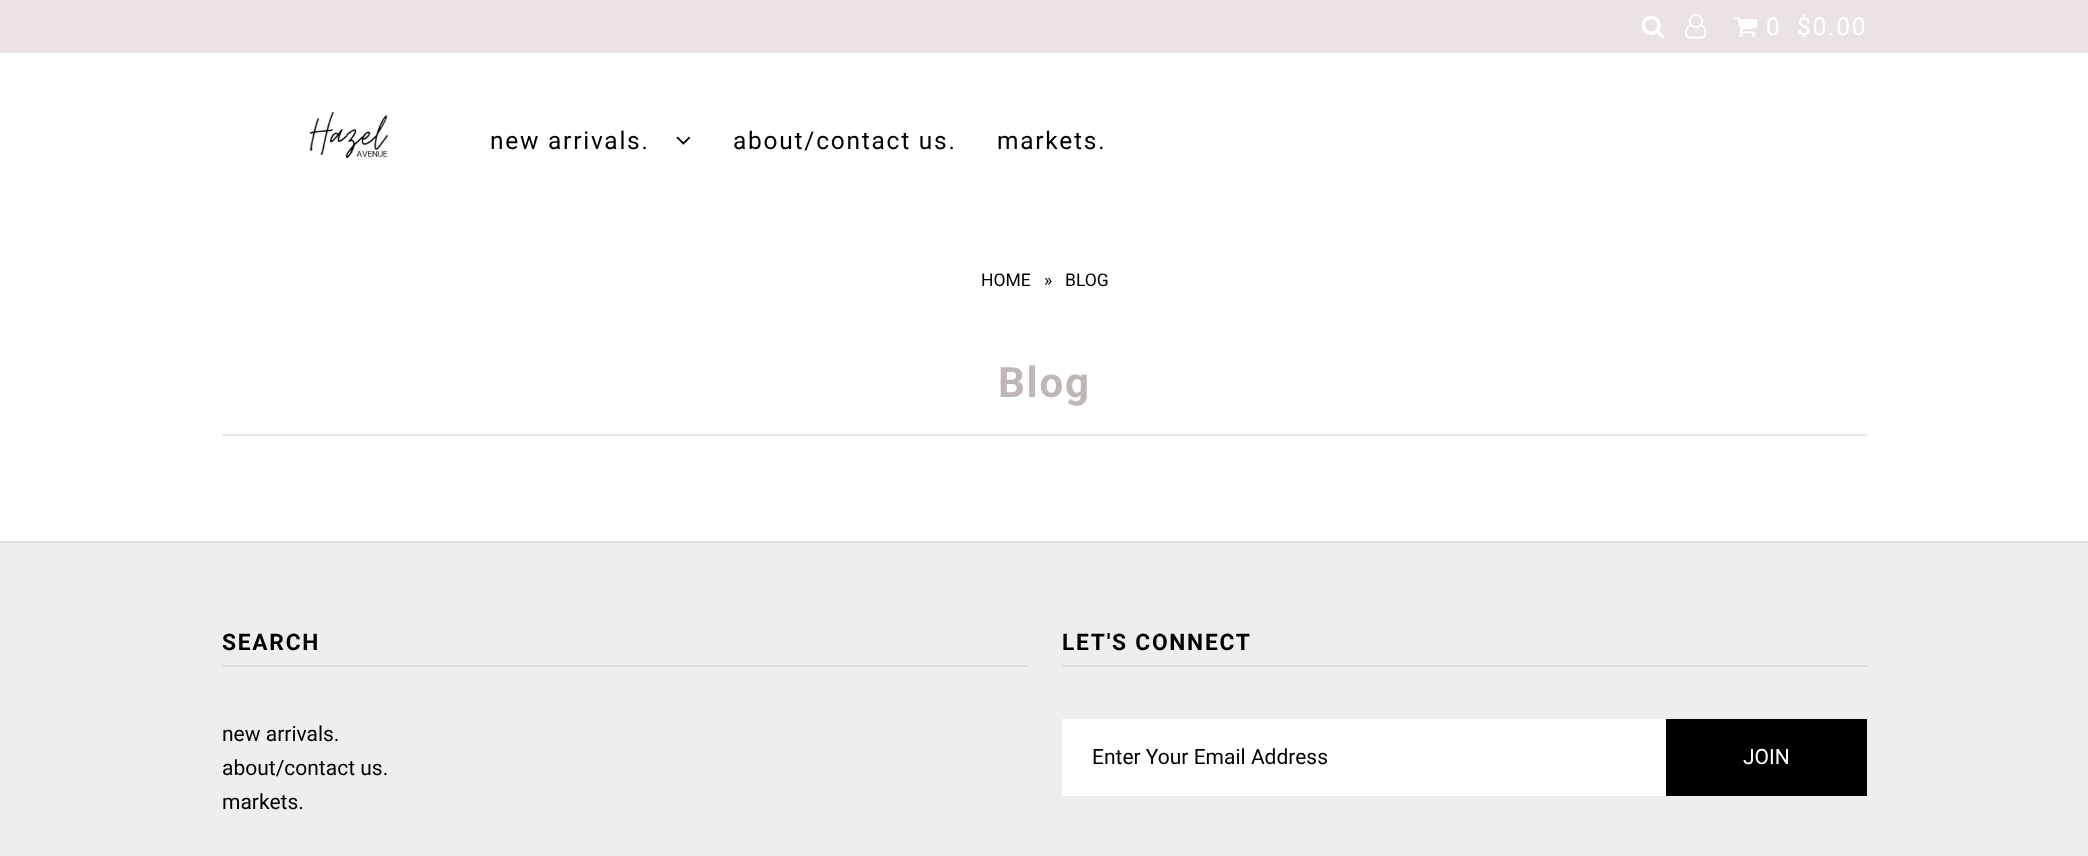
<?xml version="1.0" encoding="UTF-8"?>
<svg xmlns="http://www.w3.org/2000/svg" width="2088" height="856">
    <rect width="100%" height="100%" fill="#FFFFFF"/>
    <rect x="0" y="0" width="2088" height="53" fill="#EBE3E3"/>
    <image x="1641" y="15" width="24" height="24" href="img_01.png"/>
    <image x="1685" y="14" width="22" height="25" href="img_02.png"/>
    <image x="1734" y="17" width="23" height="20" href="img_03.png"/>
    <text x="1766" y="35" font-family="Roboto" font-size="24.5" letter-spacing="1.75" fill="#FFFFFF">0</text>
    <text x="1797" y="35" font-family="Roboto" font-size="24.5" letter-spacing="1.75" fill="#FFFFFF">$0.00</text>
    <image x="309" y="111" width="80" height="49" href="img_04.png"/>
    <text x="490" y="149" font-family="Roboto" font-size="24.5" letter-spacing="1.75" fill="#000000">new arrivals.</text>
    <image x="676" y="136" width="15" height="9" href="img_05.png"/>
    <text x="733" y="149" font-family="Roboto" font-size="24.5" letter-spacing="1.75" fill="#000000">about/contact us.</text>
    <text x="997" y="149" font-family="Roboto" font-size="24.5" letter-spacing="1.75" fill="#000000">markets.</text>
    <text x="981" y="286" font-family="Roboto" font-size="17.5" fill="#000000">HOME</text>
    <text x="1044" y="286" font-family="Roboto" font-size="17.5" fill="#000000">»</text>
    <text x="1065" y="286" font-family="Roboto" font-size="17.5" fill="#000000">BLOG</text>
    <rect x="222" y="434" width="1645" height="2" fill="#E5E5E5"/>
    <text x="998" y="397" font-family="Roboto" font-size="42" font-weight="700" letter-spacing="1.75" fill="#BFB6B6">Blog</text>
    <rect x="0" y="543" width="2088" height="313" fill="#EEEEEE"/>
    <rect x="0" y="541" width="2088" height="2" fill="#DDDDDD"/>
    <rect x="222" y="665" width="805" height="2" fill="#DDDDDD"/>
    <text x="222" y="650" font-family="Roboto" font-size="22.75" font-weight="700" letter-spacing="1.75" fill="#000000">SEARCH</text>
    <text font-family="Roboto" font-size="21" fill="#000000">
        <tspan x="222" y="741">new arrivals.</tspan>
        <tspan x="222" y="775">about/contact us.</tspan>
        <tspan x="222" y="809">markets.</tspan>
    </text>
    <rect x="1062" y="665" width="805" height="2" fill="#DDDDDD"/>
    <text x="1062" y="650" font-family="Roboto" font-size="22.75" font-weight="700" letter-spacing="1.75" fill="#000000">LET'S CONNECT</text>
    <rect x="1062" y="719" width="604" height="77" fill="#FFFFFF"/>
    <text x="1092" y="764" font-family="Roboto" font-size="21" fill="#000000">Enter Your Email Address</text>
    <rect x="1666" y="719" width="201" height="77" fill="#000000"/>
    <text x="1743" y="764" font-family="Roboto" font-size="21" fill="#FFFFFF">JOIN</text>
</svg>
